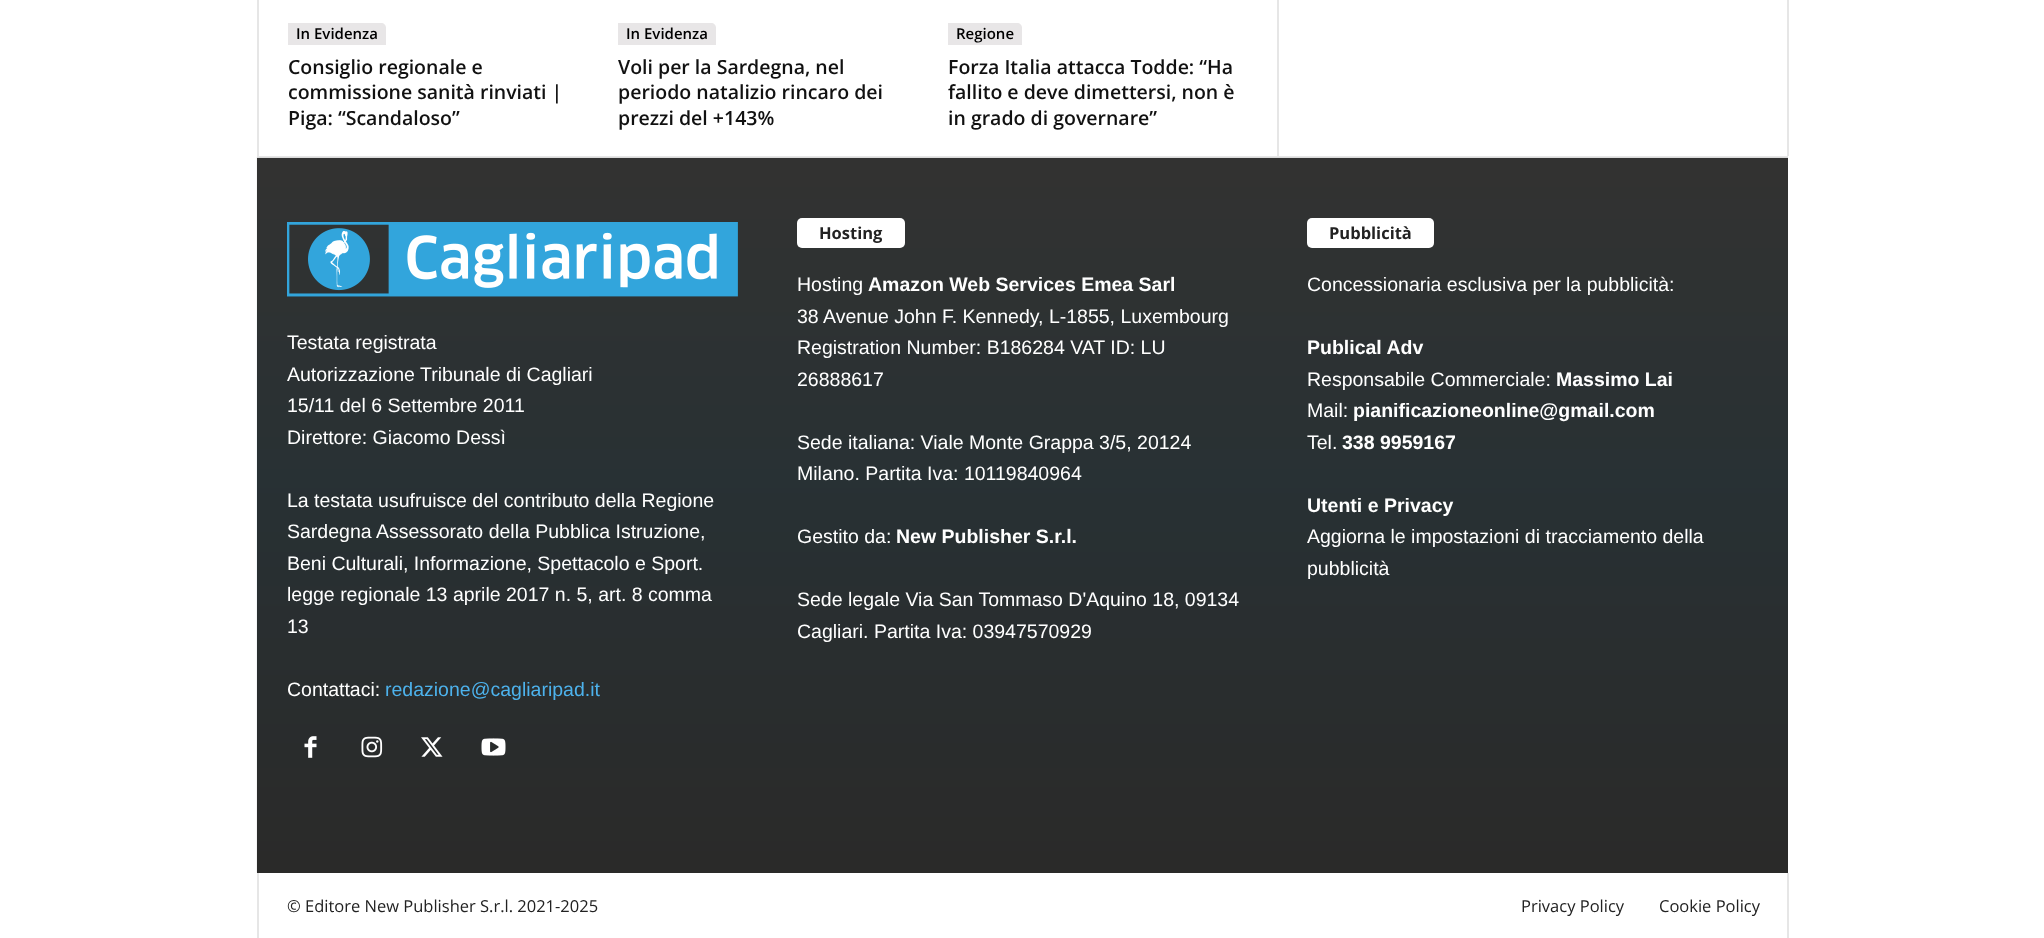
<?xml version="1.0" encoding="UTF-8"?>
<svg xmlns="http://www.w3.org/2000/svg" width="2044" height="938">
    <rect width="100%" height="100%" fill="#FFFFFF"/>
    <rect x="257" y="156" width="1531" height="2" fill="#E6E6E6"/>
    <rect x="257" y="0" width="2" height="156" fill="#E6E6E6"/>
    <path d="M 288 23 H 381 C 384 23 386 25 386 28 V 45 H 288 Z" fill="#E8E6E7"/>
    <text x="296" y="39" font-family="Open Sans" font-size="15" font-weight="600" fill="#000000">In Evidenza</text>
    <text font-family="Open Sans" font-size="19.5" font-weight="600" fill="#111111">
        <tspan x="288" y="74">Consiglio regionale e</tspan>
        <tspan x="288" y="99">commissione sanità rinviati |</tspan>
        <tspan x="288" y="125">Piga: “Scandaloso”</tspan>
    </text>
    <path d="M 618 23 H 711 C 714 23 716 25 716 28 V 45 H 618 Z" fill="#E8E6E7"/>
    <text x="626" y="39" font-family="Open Sans" font-size="15" font-weight="600" fill="#000000">In Evidenza</text>
    <text font-family="Open Sans" font-size="19.5" font-weight="600" fill="#111111">
        <tspan x="618" y="74">Voli per la Sardegna, nel</tspan>
        <tspan x="618" y="99">periodo natalizio rincaro dei</tspan>
        <tspan x="618" y="125">prezzi del +143%</tspan>
    </text>
    <path d="M 948 23 H 1017 C 1020 23 1022 25 1022 28 V 45 H 948 Z" fill="#E8E6E7"/>
    <text x="956" y="39" font-family="Open Sans" font-size="15" font-weight="600" fill="#000000">Regione</text>
    <text font-family="Open Sans" font-size="19.5" font-weight="600" fill="#111111">
        <tspan x="948" y="74">Forza Italia attacca Todde: “Ha</tspan>
        <tspan x="948" y="99">fallito e deve dimettersi, non è</tspan>
        <tspan x="948" y="125">in grado di governare”</tspan>
    </text>
    <rect x="1277" y="0" width="2" height="156" fill="#E6E6E6"/>
    <rect x="1787" y="0" width="2" height="156" fill="#E6E6E6"/>
    <rect x="257" y="158" width="1531" height="715" fill="#2B2B2A"/>
    <image x="256" y="157" width="1532" height="716" href="img_01.png"/>
    <image x="287" y="222" width="451" height="75" href="img_02.png"/>
    <text font-family="Liberation Sans" font-size="19.5" fill="#FFFFFF">
        <tspan x="287" y="349">Testata registrata</tspan>
        <tspan x="287" y="381">Autorizzazione Tribunale di Cagliari</tspan>
        <tspan x="287" y="412">15/11 del 6 Settembre 2011</tspan>
        <tspan x="287" y="444">Direttore: Giacomo Dessì</tspan>
    </text>
    <text font-family="Liberation Sans" font-size="19.5" fill="#FFFFFF">
        <tspan x="287" y="507">La testata usufruisce del contributo della Regione</tspan>
        <tspan x="287" y="538">Sardegna Assessorato della Pubblica Istruzione,</tspan>
        <tspan x="287" y="570">Beni Culturali, Informazione, Spettacolo e Sport.</tspan>
        <tspan x="287" y="601">legge regionale 13 aprile 2017 n. 5, art. 8 comma</tspan>
        <tspan x="287" y="633">13</tspan>
    </text>
    <text x="287" y="696" font-family="Liberation Sans" font-size="19.5" fill="#FFFFFF">Contattaci:</text>
    <text x="385" y="696" font-family="Liberation Sans" font-size="19.5" fill="#4DB2EC">redazione@cagliaripad.it</text>
    <image x="304" y="736" width="13" height="22" href="img_03.png"/>
    <image x="361" y="736" width="22" height="22" href="img_04.png"/>
    <image x="421" y="737" width="22" height="20" href="img_05.png"/>
    <image x="481" y="738" width="25" height="18" href="img_06.png"/>
    <rect x="797" y="218" width="108" height="30" rx="5" fill="#FFFFFF"/>
    <text x="819" y="239" font-family="Open Sans" font-size="16.5" font-weight="700" fill="#222222">Hosting</text>
    <text x="797" y="291" font-family="Liberation Sans" font-size="19.5" fill="#FFFFFF">Hosting</text>
    <text x="868" y="291" font-family="Liberation Sans" font-size="19.5" font-weight="700" fill="#FFFFFF">Amazon Web Services Emea Sarl</text>
    <text font-family="Liberation Sans" font-size="19.5" fill="#FFFFFF">
        <tspan x="797" y="323">38 Avenue John F. Kennedy, L-1855, Luxembourg</tspan>
        <tspan x="797" y="354">Registration Number: B186284 VAT ID: LU</tspan>
        <tspan x="797" y="386">26888617</tspan>
    </text>
    <text font-family="Liberation Sans" font-size="19.5" fill="#FFFFFF">
        <tspan x="797" y="449">Sede italiana: Viale Monte Grappa 3/5, 20124</tspan>
        <tspan x="797" y="480">Milano. Partita Iva: 10119840964</tspan>
    </text>
    <text x="797" y="543" font-family="Liberation Sans" font-size="19.5" fill="#FFFFFF">Gestito da:</text>
    <text x="896" y="543" font-family="Liberation Sans" font-size="19.5" font-weight="700" fill="#FFFFFF">New Publisher S.r.l.</text>
    <text font-family="Liberation Sans" font-size="19.5" fill="#FFFFFF">
        <tspan x="797" y="606">Sede legale Via San Tommaso D'Aquino 18, 09134</tspan>
        <tspan x="797" y="638">Cagliari. Partita Iva: 03947570929</tspan>
    </text>
    <rect x="1307" y="218" width="127" height="30" rx="5" fill="#FFFFFF"/>
    <text x="1329" y="239" font-family="Open Sans" font-size="16.5" font-weight="700" fill="#222222">Pubblicità</text>
    <text x="1307" y="291" font-family="Liberation Sans" font-size="19.5" fill="#FFFFFF">Concessionaria esclusiva per la pubblicità:</text>
    <text x="1307" y="354" font-family="Liberation Sans" font-size="19.5" font-weight="700" fill="#FFFFFF">Publical Adv</text>
    <text x="1307" y="386" font-family="Liberation Sans" font-size="19.5" fill="#FFFFFF">Responsabile Commerciale:</text>
    <text x="1556" y="386" font-family="Liberation Sans" font-size="19.5" font-weight="700" fill="#FFFFFF">Massimo Lai</text>
    <text x="1307" y="417" font-family="Liberation Sans" font-size="19.5" fill="#FFFFFF">Mail:</text>
    <text x="1353" y="417" font-family="Liberation Sans" font-size="19.5" font-weight="700" fill="#FFFFFF">pianificazioneonline@gmail.com</text>
    <text x="1307" y="449" font-family="Liberation Sans" font-size="19.5" fill="#FFFFFF">Tel.</text>
    <text x="1342" y="449" font-family="Liberation Sans" font-size="19.5" font-weight="700" fill="#FFFFFF">338 9959167</text>
    <text x="1307" y="512" font-family="Liberation Sans" font-size="19.5" font-weight="700" fill="#FFFFFF">Utenti e Privacy</text>
    <text font-family="Liberation Sans" font-size="19.5" fill="#FFFFFF">
        <tspan x="1307" y="543">Aggiorna le impostazioni di tracciamento della</tspan>
        <tspan x="1307" y="575">pubblicità</tspan>
    </text>
    <rect x="257" y="873" width="2" height="65" fill="#E6E6E6"/>
    <text x="287" y="912" font-family="Open Sans" font-size="16.5" fill="#222222">© Editore New Publisher S.r.l. 2021-2025</text>
    <text x="1521" y="912" font-family="Open Sans" font-size="16.5" fill="#222222">Privacy Policy</text>
    <text x="1659" y="912" font-family="Open Sans" font-size="16.5" fill="#222222">Cookie Policy</text>
    <rect x="1787" y="873" width="2" height="65" fill="#E6E6E6"/>
</svg>
